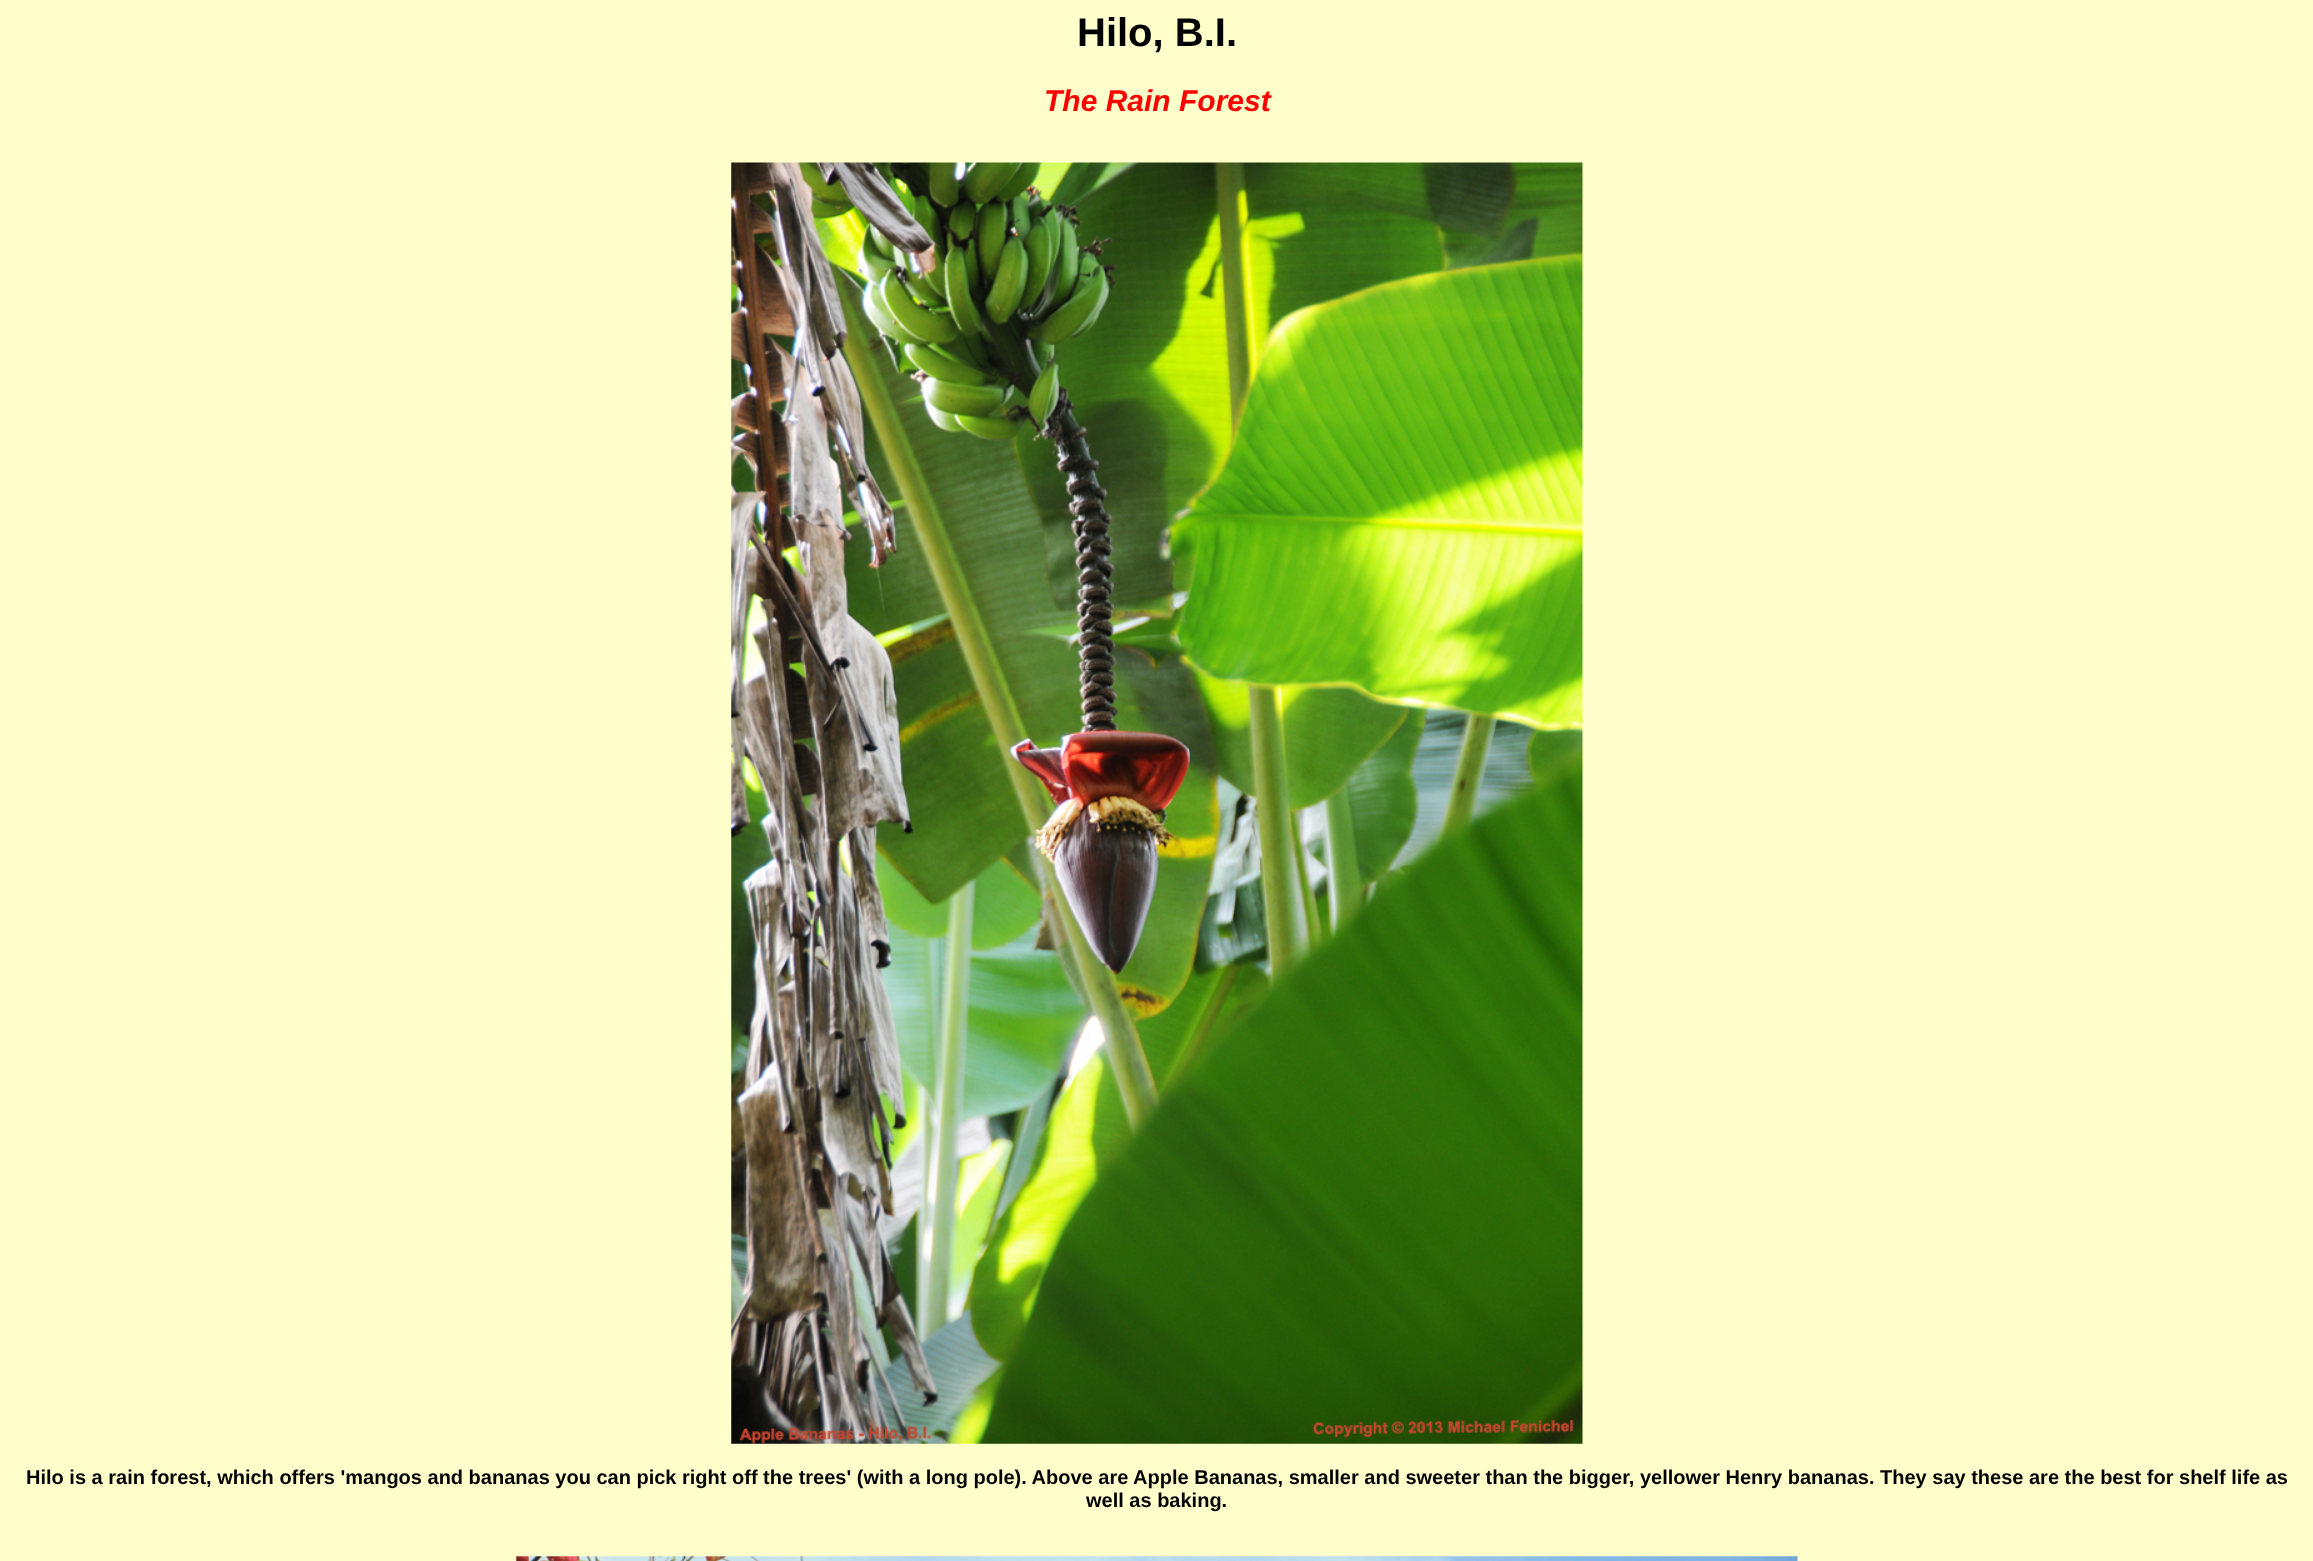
<?xml version="1.0" encoding="UTF-8"?>
<svg xmlns="http://www.w3.org/2000/svg" width="2313" height="1561">
    <rect width="100%" height="100%" fill="#FFFFCC"/>
    <text x="1077" y="46" font-family="Liberation Sans" font-size="40" font-weight="700" fill="#000000">Hilo, B.I.</text>
    <text x="1044" y="111" font-family="Liberation Sans" font-size="30" font-weight="700" font-style="italic" fill="#FF0000">The Rain Forest</text>
    <image x="731" y="162" width="852" height="1282" href="img_01.png"/>
    <text x="26" y="1484" font-family="Liberation Sans" font-size="20" font-weight="700" fill="#000000">Hilo is a rain forest, which offers 'mangos and bananas you can pick right off the trees' (with a long pole). Above are Apple Bananas, smaller and sweeter than the bigger, yellower Henry bananas. They say these are the best for shelf life as</text>
    <text x="1086" y="1507" font-family="Liberation Sans" font-size="20" font-weight="700" fill="#000000">well as baking.</text>
    <image x="516" y="1556" width="1282" height="5" href="img_02.png"/>
</svg>
